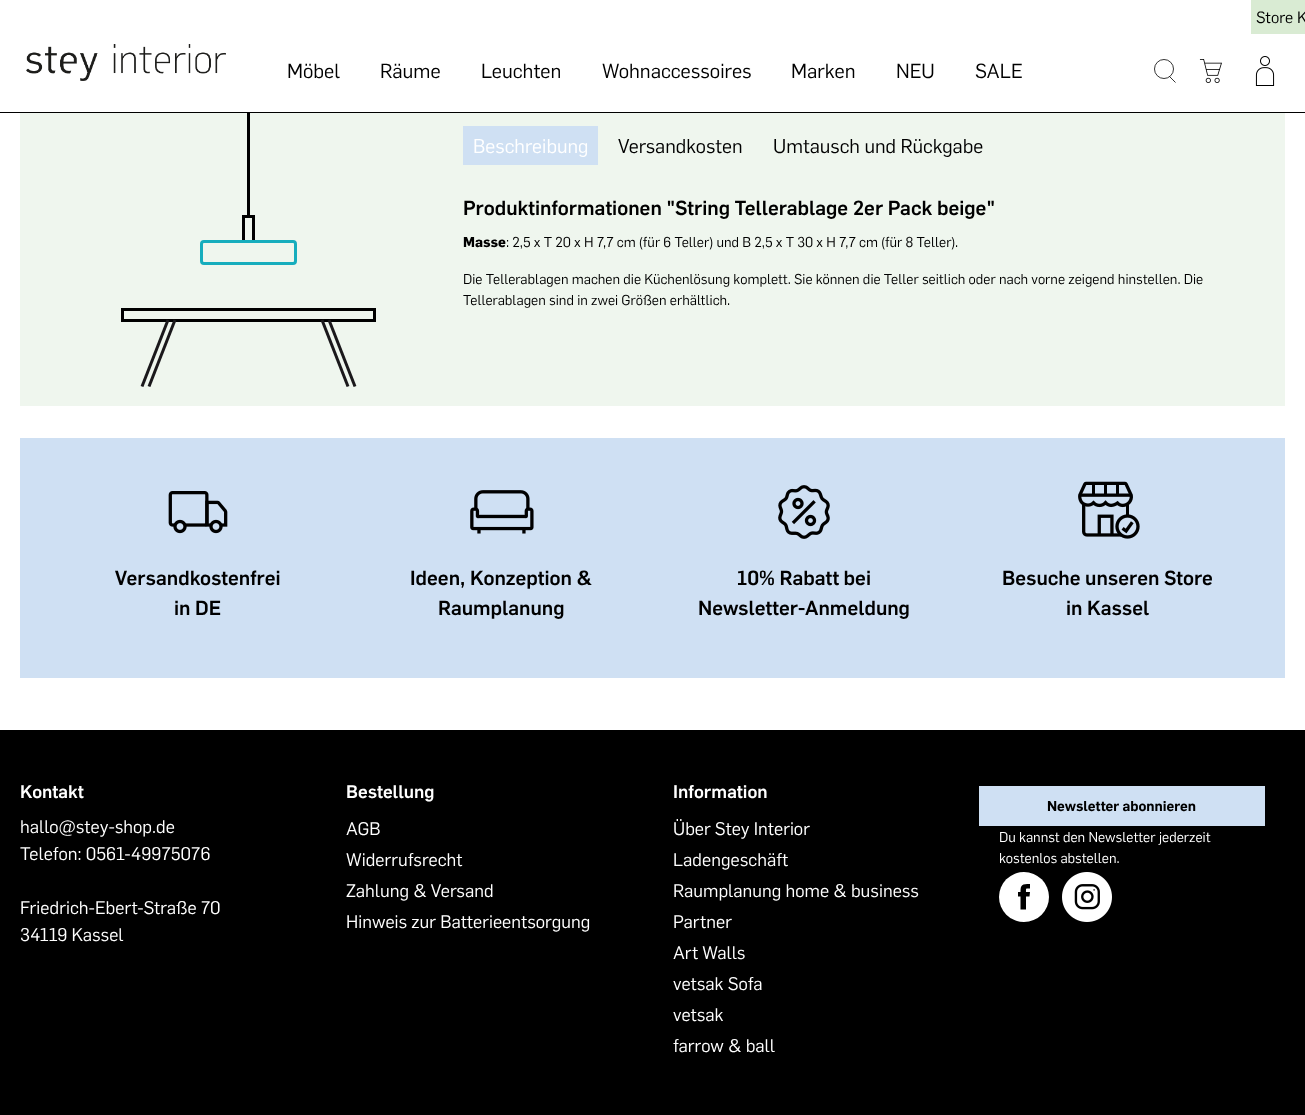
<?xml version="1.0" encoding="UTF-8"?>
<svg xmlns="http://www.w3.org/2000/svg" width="1305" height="1115">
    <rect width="100%" height="100%" fill="#FFFFFF"/>
    <rect x="20" y="113" width="1265" height="293" fill="#EFF6EE"/>
    <rect x="243.5" y="216.5" width="10" height="25" fill="none" stroke="#000000" stroke-width="3"/>
    <rect x="247" y="106" width="3" height="111" fill="#000000"/>
    <rect x="247" y="106" width="3" height="6" fill="#FFFFFF"/>
    <rect x="1251" y="0" width="54" height="34" fill="#D9EBD3"/>
    <text x="1256" y="23" font-family="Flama" font-size="16" fill="#000000">Store K</text>
    <rect x="0" y="112" width="1305" height="1" fill="#000000"/>
    <image x="26" y="44" width="200" height="37" href="img_01.png"/>
    <text x="287" y="78" font-family="Flama" font-size="20" fill="#000000">Möbel</text>
    <text x="380" y="78" font-family="Flama" font-size="20" fill="#000000">Räume</text>
    <text x="481" y="78" font-family="Flama" font-size="20" fill="#000000">Leuchten</text>
    <text x="602" y="78" font-family="Flama" font-size="20" fill="#000000">Wohnaccessoires</text>
    <text x="791" y="78" font-family="Flama" font-size="20" fill="#000000">Marken</text>
    <text x="896" y="78" font-family="Flama" font-size="20" fill="#000000">NEU</text>
    <text x="975" y="78" font-family="Flama" font-size="20" fill="#000000">SALE</text>
    <path d="M 1169.5 76.5 L 1175.5 82.5" fill="none" stroke="#000000" stroke-width="0.8"/>
    <circle cx="1164" cy="69" r="9.5" fill="none" stroke="#000000" stroke-width="0.8"/>
    <image x="1199" y="59" width="23" height="24" href="img_02.png"/>
    <image x="1255" y="56" width="20" height="30" href="img_03.png"/>
    <rect x="122.5" y="309.5" width="252" height="11" fill="none" stroke="#000000" stroke-width="3"/>
    <path d="M 142 386.5 L 168 320" fill="none" stroke="#1A181B" stroke-width="3"/>
    <path d="M 149 386.5 L 175 320" fill="none" stroke="#1A181B" stroke-width="3"/>
    <path d="M 355 386.5 L 329 320" fill="none" stroke="#1A181B" stroke-width="3"/>
    <path d="M 348 386.5 L 322 320" fill="none" stroke="#1A181B" stroke-width="3"/>
    <rect x="201.5" y="241.5" width="94" height="22" rx="2.5" fill="none" stroke="#16ADBD" stroke-width="3"/>
    <rect x="463" y="126" width="135" height="39" fill="#CFE0F3"/>
    <text x="473" y="153" font-family="Flama" font-size="19.6" fill="#FFFFFF">Beschreibung</text>
    <text x="618" y="153" font-family="Flama" font-size="19.6" fill="#000000">Versandkosten</text>
    <text x="773" y="153" font-family="Flama" font-size="19.6" fill="#000000">Umtausch und Rückgabe</text>
    <text x="463" y="215" font-family="Flama" font-size="20" font-weight="500" fill="#000000">Produktinformationen "String Tellerablage 2er Pack beige"</text>
    <text x="463" y="247" font-family="Flama" font-size="14" font-weight="700" fill="#000000">Masse</text>
    <text x="506" y="247" font-family="Flama" font-size="14" fill="#000000">: 2,5 x T 20 x H 7,7 cm (für 6 Teller) und B 2,5 x T 30 x H 7,7 cm (für 8 Teller).</text>
    <text font-family="Flama" font-size="14" fill="#000000">
        <tspan x="463" y="284">Die Tellerablagen machen die Küchenlösung komplett. Sie können die Teller seitlich oder nach vorne zeigend hinstellen. Die</tspan>
        <tspan x="463" y="305">Tellerablagen sind in zwei Größen erhältlich.</tspan>
    </text>
    <rect x="20" y="438" width="1265" height="240" fill="#CFE0F3"/>
    <image x="168" y="491" width="60" height="43" href="img_04.png"/>
    <text x="115" y="585" font-family="Flama" font-size="20" font-weight="500" fill="#000000">Versandkostenfrei</text>
    <text x="174" y="615" font-family="Flama" font-size="20" font-weight="500" fill="#000000">in DE</text>
    <image x="470" y="490" width="64" height="44" href="img_05.png"/>
    <text x="410" y="585" font-family="Flama" font-size="20" font-weight="500" fill="#000000">Ideen, Konzeption &amp;</text>
    <text x="438" y="615" font-family="Flama" font-size="20" font-weight="500" fill="#000000">Raumplanung</text>
    <image x="778" y="485" width="52" height="54" href="img_06.png"/>
    <text x="737" y="585" font-family="Flama" font-size="20" font-weight="500" fill="#000000">10% Rabatt bei</text>
    <text x="698" y="615" font-family="Flama" font-size="20" font-weight="500" fill="#000000">Newsletter-Anmeldung</text>
    <image x="1078" y="481" width="62" height="58" href="img_07.png"/>
    <text x="1002" y="585" font-family="Flama" font-size="20" font-weight="500" fill="#000000">Besuche unseren Store</text>
    <text x="1066" y="615" font-family="Flama" font-size="20" font-weight="500" fill="#000000">in Kassel</text>
    <rect x="0" y="730" width="1305" height="385" fill="#000000"/>
    <text x="20" y="798" font-family="Flama" font-size="18" font-weight="500" fill="#FFFFFF">Kontakt</text>
    <text font-family="Flama" font-size="18" fill="#FFFFFF">
        <tspan x="20" y="833">hallo@stey-shop.de</tspan>
        <tspan x="20" y="860">Telefon: 0561-49975076</tspan>
    </text>
    <text font-family="Flama" font-size="18" fill="#FFFFFF">
        <tspan x="20" y="914">Friedrich-Ebert-Straße 70</tspan>
        <tspan x="20" y="941">34119 Kassel</tspan>
    </text>
    <text x="346" y="798" font-family="Flama" font-size="18" font-weight="500" fill="#FFFFFF">Bestellung</text>
    <text font-family="Flama" font-size="18" fill="#FFFFFF">
        <tspan x="346" y="835">AGB</tspan>
        <tspan x="346" y="866">Widerrufsrecht</tspan>
        <tspan x="346" y="897">Zahlung &amp; Versand</tspan>
        <tspan x="346" y="928">Hinweis zur Batterieentsorgung</tspan>
    </text>
    <text x="673" y="798" font-family="Flama" font-size="18" font-weight="500" fill="#FFFFFF">Information</text>
    <text font-family="Flama" font-size="18" fill="#FFFFFF">
        <tspan x="673" y="835">Über Stey Interior</tspan>
        <tspan x="673" y="866">Ladengeschäft</tspan>
        <tspan x="673" y="897">Raumplanung home &amp; business</tspan>
        <tspan x="673" y="928">Partner</tspan>
        <tspan x="673" y="959">Art Walls</tspan>
        <tspan x="673" y="990">vetsak Sofa</tspan>
        <tspan x="673" y="1021">vetsak</tspan>
        <tspan x="673" y="1052">farrow &amp; ball</tspan>
    </text>
    <rect x="979" y="786" width="286" height="40" fill="#CFE0F3"/>
    <text x="1047" y="811" font-family="Flama" font-size="14" font-weight="600" fill="#000000">Newsletter abonnieren</text>
    <text font-family="Flama" font-size="14" fill="#FFFFFF">
        <tspan x="999" y="842">Du kannst den Newsletter jederzeit</tspan>
        <tspan x="999" y="863">kostenlos abstellen.</tspan>
    </text>
    <circle cx="1024" cy="897" r="25" fill="#FFFFFF"/>
    <path d="M 1029.5 896.5 H 1026 V 909.5 H 1020.5 V 896.5 H 1018 V 892 H 1020.5 C 1020.5 884.5 1022 884 1030 884 V 888.5 C 1025.5 888.5 1026 888 1026 892 H 1030 Z" fill="#000000"/>
    <image x="1062" y="872" width="50" height="50" href="img_08.png"/>
</svg>
